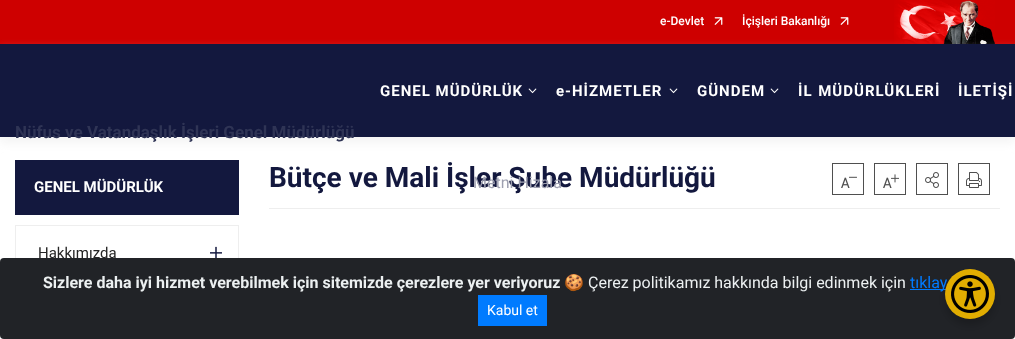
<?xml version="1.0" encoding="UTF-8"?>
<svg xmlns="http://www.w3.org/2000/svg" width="1015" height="339">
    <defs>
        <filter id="blur1" x="-50%" y="-200%" width="200%" height="500%"><feGaussianBlur stdDeviation="5"/></filter>
        <filter id="blur2" x="-50%" y="-200%" width="200%" height="500%"><feGaussianBlur stdDeviation="4"/></filter>
    </defs>
    <rect width="100%" height="100%" fill="#FFFFFF"/>
    <rect x="0" y="0" width="1015" height="44" fill="#CE0000"/>
    <text x="660" y="25" font-family="Roboto" font-size="12" font-weight="500" fill="#FFFFFF">e-Devlet</text>
    <image x="714" y="17" width="9" height="8" href="img_01.png"/>
    <text x="742" y="25" font-family="Roboto" font-size="12" font-weight="500" fill="#FFFFFF">İçişleri Bakanlığı</text>
    <image x="840" y="17" width="9" height="8" href="img_01.png"/>
    <image x="894" y="0" width="101" height="44" href="img_02.png"/>
    <rect x="0" y="50" width="1015" height="93" fill="#EEEEEE" fill-opacity="0.62" filter="url(#blur1)"/>
    <rect x="0" y="44" width="1015" height="93" fill="#13183E"/>
    <text x="380" y="96" font-family="Roboto" font-size="15" font-weight="700" letter-spacing="1" fill="#FFFFFF">GENEL MÜDÜRLÜK</text>
    <image x="528" y="88" width="9" height="6" href="img_03.png"/>
    <text x="556" y="96" font-family="Roboto" font-size="15" font-weight="700" letter-spacing="1" fill="#FFFFFF">e-HİZMETLER</text>
    <image x="669" y="88" width="9" height="6" href="img_03.png"/>
    <text x="697" y="96" font-family="Roboto" font-size="15" font-weight="700" letter-spacing="1" fill="#FFFFFF">GÜNDEM</text>
    <image x="770" y="88" width="9" height="6" href="img_03.png"/>
    <text x="798" y="96" word-spacing="1" font-family="Roboto" font-size="15" font-weight="700" letter-spacing="1" fill="#FFFFFF">İL MÜDÜRLÜKLERİ</text>
    <text x="958" y="96" font-family="Roboto" font-size="15" font-weight="700" letter-spacing="1" fill="#FFFFFF">İLETİŞİ</text>
    <text x="15" y="138" font-family="Roboto" font-size="17" font-weight="700" fill="#2F3455">Nüfus ve Vatandaşlık İşleri Genel Müdürlüğü</text>
    <rect x="15" y="160" width="224" height="55" fill="#13183E"/>
    <text x="34" y="192" font-family="Roboto" font-size="15" font-weight="700" fill="#FFFFFF">GENEL MÜDÜRLÜK</text>
    <rect x="15.5" y="225.5" width="223" height="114" fill="none" stroke="#EEEEEE"/>
    <text x="38" y="258" font-family="Roboto" font-size="15" fill="#252525">Hakkımızda</text>
    <image x="210" y="246" width="12" height="12" href="img_04.png"/>
    <rect x="269" y="208" width="731" height="1" fill="#EEEEEE"/>
    <text x="269" y="187" font-family="Roboto" font-size="28" font-weight="700" fill="#13183E">Bütçe ve Mali İşler Şube Müdürlüğü</text>
    <rect x="832.5" y="163.5" width="31" height="31" fill="none" stroke="#4F4F4F"/>
    <image x="841" y="176" width="16" height="12" href="img_05.png"/>
    <rect x="874.5" y="163.5" width="31" height="31" fill="none" stroke="#4F4F4F"/>
    <image x="883" y="174" width="16" height="14" href="img_06.png"/>
    <rect x="916.5" y="163.5" width="31" height="31" fill="none" stroke="#4F4F4F"/>
    <image x="925" y="172" width="14" height="16" href="img_07.png"/>
    <rect x="958.5" y="163.5" width="31" height="31" fill="none" stroke="#4F4F4F"/>
    <image x="966" y="172" width="16" height="16" href="img_08.png"/>
    <text x="473" y="188" font-family="Roboto" font-size="16" fill="#9EA0B0">Metni Hizala</text>
    <rect x="0" y="258" width="1015" height="81" rx="4" fill="#212327"/>
    <rect x="910" y="289" width="36" height="1" fill="#007BFF"/>
    <rect x="945" y="275" width="50" height="50" rx="25" fill="#000000" fill-opacity="0.2" filter="url(#blur2)"/>
    <text x="910" y="288" font-family="Roboto" font-size="16" fill="#007BFF">tıklay</text>
    <circle cx="970" cy="294" r="25" fill="#E1AD01"/>
    <image x="951" y="275" width="38" height="38" href="img_09.png"/>
    <text x="43" y="288" font-family="Roboto" font-size="16" font-weight="700" fill="#ECF0F1">Sizlere daha iyi hizmet verebilmek için sitemizde çerezlere yer veriyoruz</text>
    <text x="564" y="288" font-family="Noto Color Emoji" font-size="16" fill="#ECF0F1">🍪</text>
    <text x="588" y="288" font-family="Roboto" font-size="16" fill="#ECF0F1">Çerez politikamız hakkında bilgi edinmek için</text>
    <rect x="478" y="295" width="69" height="31" fill="#007BFF"/>
    <text x="487" y="315" font-family="Roboto" font-size="14" fill="#FFFFFF">Kabul et</text>
</svg>
